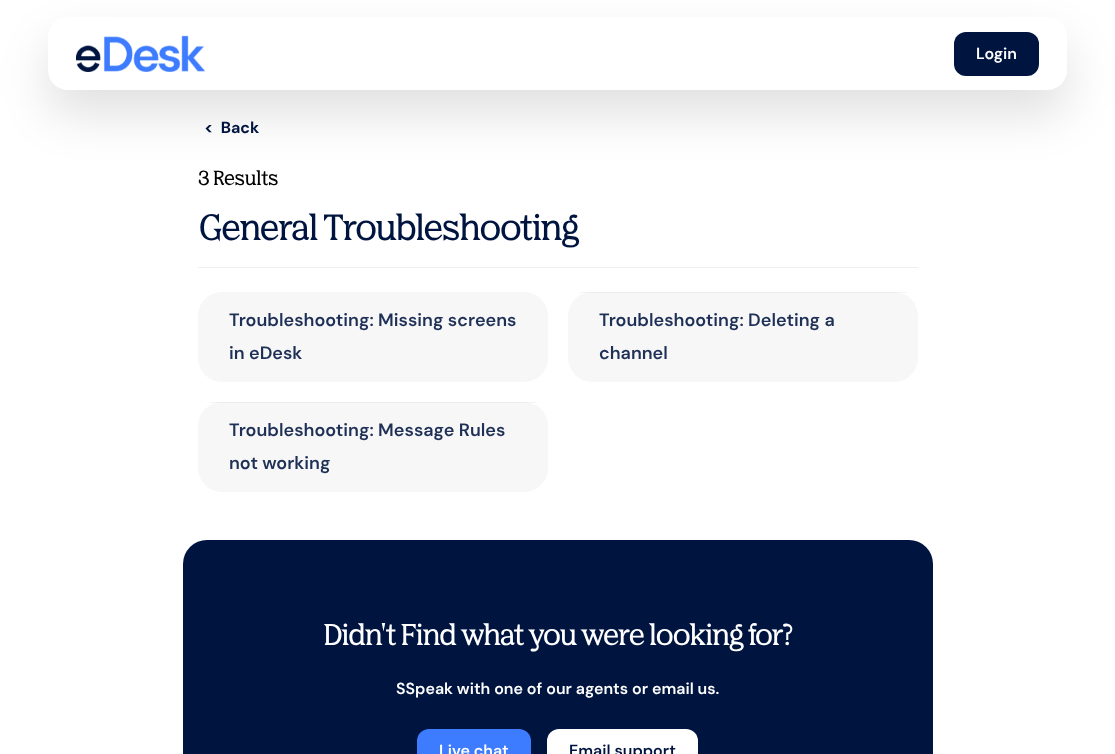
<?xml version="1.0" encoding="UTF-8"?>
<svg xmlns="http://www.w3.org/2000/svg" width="1115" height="754">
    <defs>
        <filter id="blur1" x="-50%" y="-200%" width="200%" height="500%"><feGaussianBlur stdDeviation="24"/></filter>
    </defs>
    <rect width="100%" height="100%" fill="#FFFFFF"/>
    <rect x="48" y="41" width="1019" height="73" rx="20" fill="#000000" fill-opacity="0.12" filter="url(#blur1)"/>
    <rect x="48" y="17" width="1019" height="73" rx="20" fill="#FFFFFF"/>
    <image x="76" y="35" width="129" height="37" href="img_01.png"/>
    <rect x="954" y="32" width="85" height="44" rx="12" fill="#001440"/>
    <text x="976" y="59" font-family="'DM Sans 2'" font-size="16" font-weight="600" fill="#FFFFFF">Login</text>
    <text x="204" y="133" font-family="DM Sans" font-size="16" font-weight="700" fill="#001440" xml:space="preserve">&lt;  Back</text>
    <text x="198" y="185" font-family="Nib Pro" font-size="19" font-weight="700" fill="#000000">3 Results</text>
    <rect x="198" y="267" width="720" height="1" fill="#EEEEEE"/>
    <text x="198" y="240" font-family="Nib Pro" font-size="34" font-weight="700" letter-spacing="-0.7" fill="#001440">General Troubleshooting</text>
    <rect x="198" y="292" width="350" height="90" rx="24" fill="#F7F7F7"/>
    <text font-family="DM Sans" font-size="18" font-weight="600" fill="#1F3057">
        <tspan x="229" y="326">Troubleshooting: Missing screens</tspan>
        <tspan x="229" y="359">in eDesk</tspan>
    </text>
    <rect x="568" y="292" width="350" height="90" rx="24" fill="#F7F7F7"/>
    <rect x="580" y="292" width="326" height="1" fill="#1F1F1F" fill-opacity="0.05"/>
    <text font-family="DM Sans" font-size="18" font-weight="600" fill="#1F3057">
        <tspan x="599" y="326">Troubleshooting: Deleting a</tspan>
        <tspan x="599" y="359">channel</tspan>
    </text>
    <rect x="198" y="402" width="350" height="90" rx="24" fill="#F7F7F7"/>
    <rect x="210" y="402" width="326" height="1" fill="#1F1F1F" fill-opacity="0.05"/>
    <text font-family="DM Sans" font-size="18" font-weight="600" fill="#1F3057">
        <tspan x="229" y="436">Troubleshooting: Message Rules</tspan>
        <tspan x="229" y="469">not working</tspan>
    </text>
    <rect x="183" y="540" width="750" height="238" rx="24" fill="#001440"/>
    <text x="323" y="645" font-family="Nib Pro" font-size="28" font-weight="700" letter-spacing="-0.55" fill="#FFFFFF">Didn't Find what you were looking for?</text>
    <text x="396" y="694" font-family="'DM Sans 2'" font-size="16" font-weight="600" fill="#FFFFFF">SSpeak with one of our agents or email us.</text>
    <rect x="417" y="729" width="114" height="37" rx="12" fill="#3D7BFF"/>
    <text x="439" y="756" font-family="'DM Sans 2'" font-size="16" font-weight="600" fill="#FFFFFF">Live chat</text>
    <rect x="547" y="729" width="151" height="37" rx="12" fill="#FFFFFF"/>
    <text x="569" y="756" font-family="'DM Sans 2'" font-size="16" font-weight="600" fill="#001440">Email support</text>
</svg>
